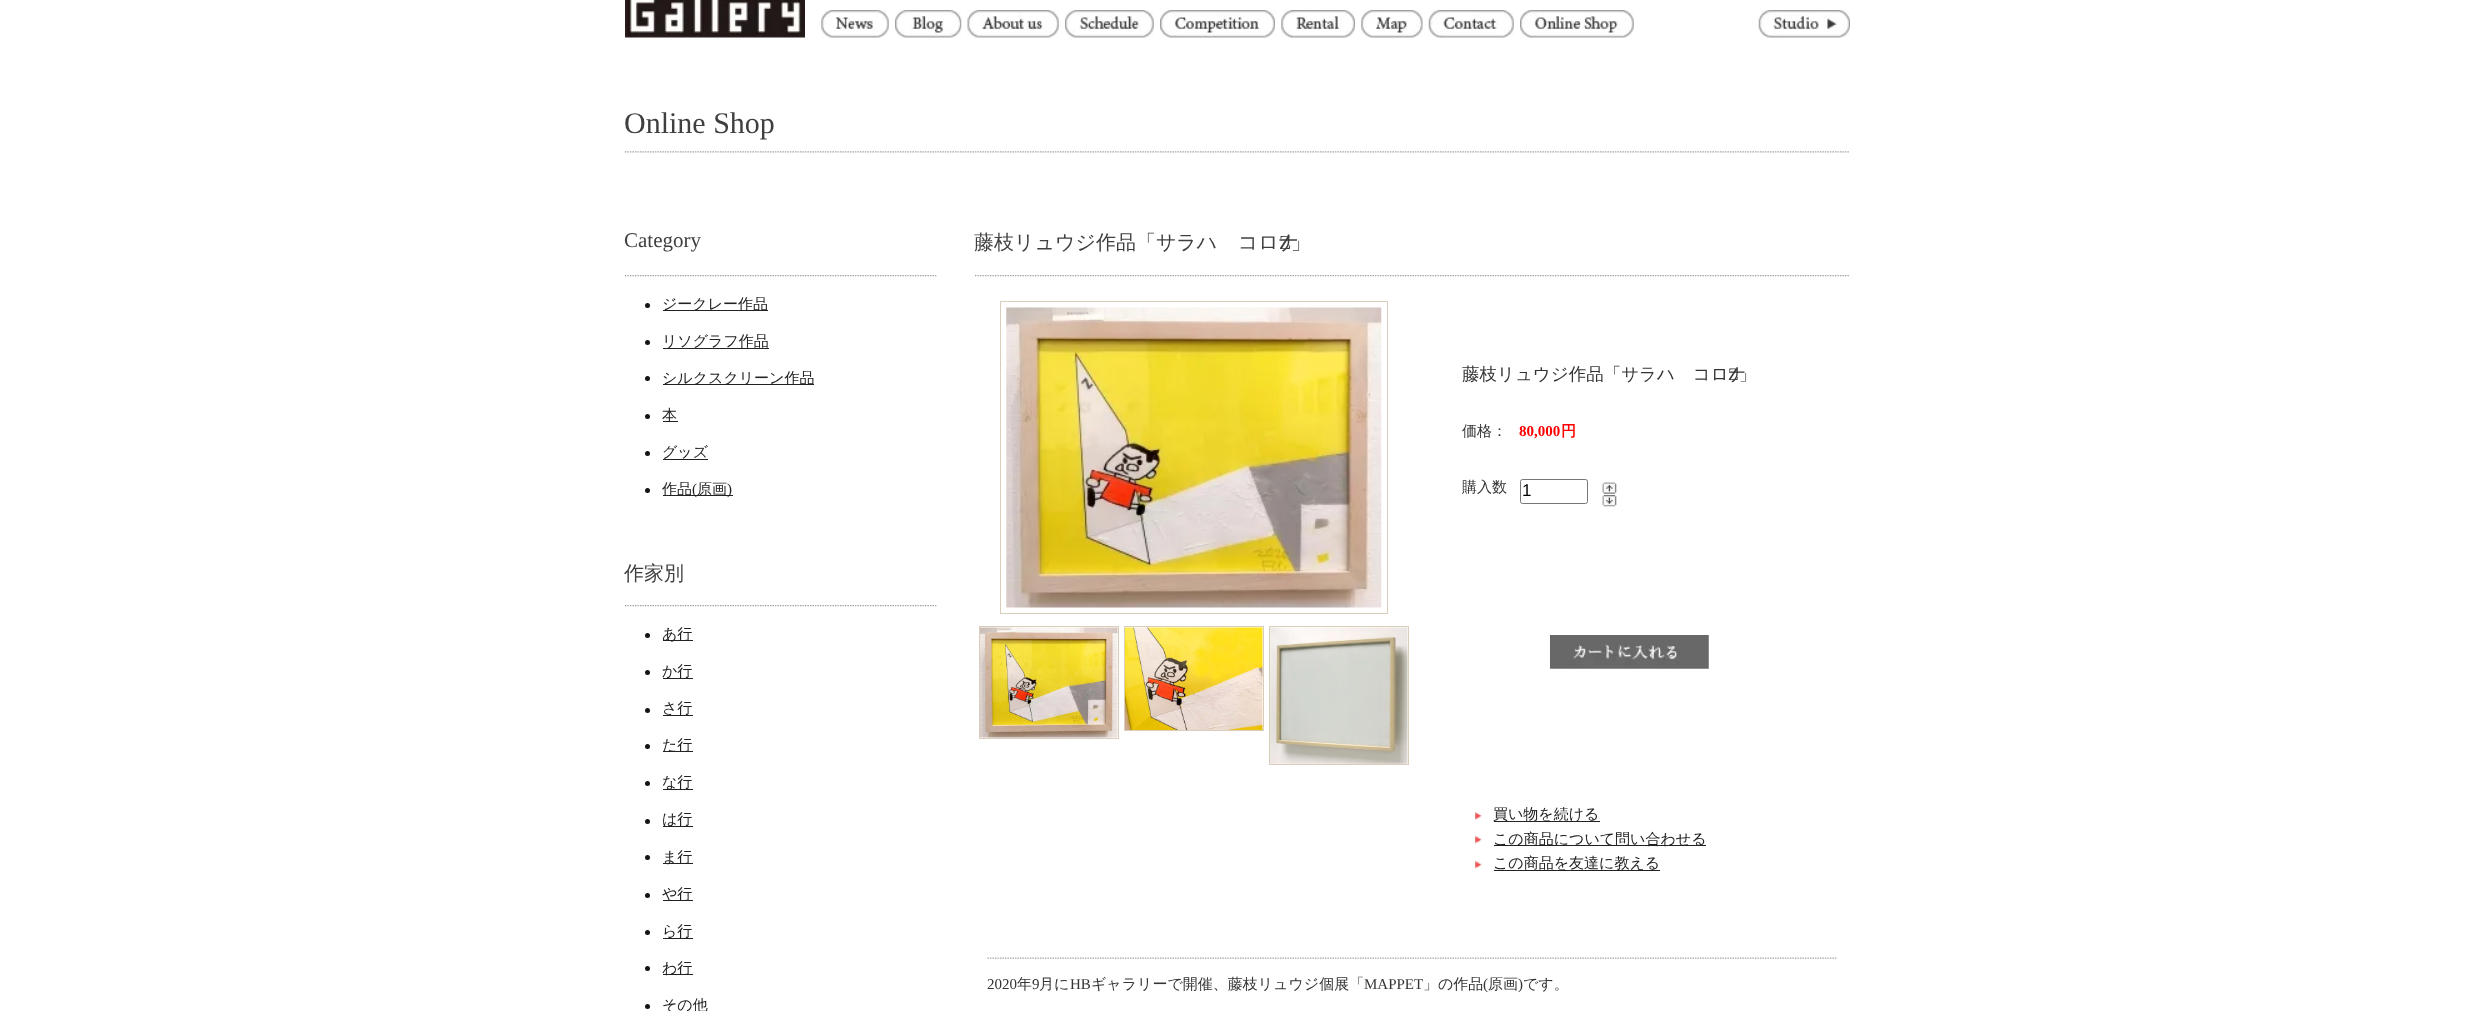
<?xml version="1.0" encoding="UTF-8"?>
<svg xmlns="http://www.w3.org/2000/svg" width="2473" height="1011">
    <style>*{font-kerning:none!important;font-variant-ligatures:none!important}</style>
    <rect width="100%" height="100%" fill="#FFFFFF"/>
    <image x="625" y="0" width="180" height="38" href="img_01.png"/>
    <image x="821" y="10" width="68" height="28" href="img_02.png"/>
    <image x="895" y="10" width="67" height="28" href="img_03.png"/>
    <image x="967" y="10" width="92" height="28" href="img_04.png"/>
    <image x="1065" y="10" width="89" height="28" href="img_05.png"/>
    <image x="1160" y="10" width="115" height="28" href="img_06.png"/>
    <image x="1281" y="10" width="74" height="28" href="img_07.png"/>
    <image x="1361" y="10" width="62" height="28" href="img_08.png"/>
    <image x="1428" y="10" width="86" height="28" href="img_09.png"/>
    <image x="1520" y="10" width="114" height="28" href="img_10.png"/>
    <image x="1758" y="10" width="92" height="28" href="img_11.png"/>
    <text x="624" y="133" font-family="Liberation Serif" font-size="30" fill="#3F3F3F">Online Shop</text>
    <image x="625" y="151" width="1224" height="2" href="img_12.png"/>
    <text x="624" y="247" font-family="Liberation Serif" font-size="21" fill="#3F3F3F">Category</text>
    <image x="625" y="275" width="312" height="2" href="img_13.png"/>
    <circle cx="647.5" cy="305.5" r="2.5" fill="#141414"/>
    <rect x="663" y="310" width="105" height="1" fill="#222222"/>
    <text x="662" y="309" font-family="WenQuanYi Zen Hei" font-size="15" font-weight="500" fill="#222222">ジークレー作品</text>
    <circle cx="647.5" cy="342.5" r="2.5" fill="#141414"/>
    <rect x="663" y="348" width="106" height="1" fill="#222222"/>
    <text x="662" y="346" font-family="WenQuanYi Zen Hei" font-size="15" font-weight="500" fill="#222222">リソグラフ作品</text>
    <circle cx="647.5" cy="378.5" r="2.5" fill="#141414"/>
    <rect x="663" y="384" width="151" height="1" fill="#222222"/>
    <text x="662" y="383" font-family="WenQuanYi Zen Hei" font-size="15" font-weight="500" fill="#222222">シルクスクリーン作品</text>
    <circle cx="647.5" cy="416.5" r="2.5" fill="#141414"/>
    <rect x="663" y="421" width="15" height="1" fill="#222222"/>
    <text x="662" y="420" font-family="WenQuanYi Zen Hei" font-size="15" font-weight="500" fill="#222222">本</text>
    <circle cx="647.5" cy="453.5" r="2.5" fill="#141414"/>
    <text x="662" y="457" font-family="WenQuanYi Zen Hei" font-size="15" font-weight="500" fill="#222222">グッズ</text>
    <rect x="663" y="459" width="45" height="1" fill="#222222"/>
    <circle cx="647.5" cy="490.5" r="2.5" fill="#141414"/>
    <rect x="663" y="495" width="70" height="1" fill="#222222"/>
    <text x="662" y="494" font-family="WenQuanYi Zen Hei" font-size="15" font-weight="500" fill="#222222">作品</text>
    <text x="692" y="494" font-family="Liberation Serif" font-size="15" fill="#222222">(</text>
    <text x="697" y="494" font-family="WenQuanYi Zen Hei" font-size="15" font-weight="500" fill="#222222">原画</text>
    <text x="727" y="494" font-family="Liberation Serif" font-size="15" fill="#222222">)</text>
    <text x="624" y="580" font-family="WenQuanYi Zen Hei" font-size="20" font-weight="500" fill="#3F3F3F">作家別</text>
    <image x="625" y="605" width="312" height="2" href="img_13.png"/>
    <circle cx="647.5" cy="635.5" r="2.5" fill="#141414"/>
    <rect x="663" y="640" width="30" height="1" fill="#222222"/>
    <text x="662" y="639" font-family="WenQuanYi Zen Hei" font-size="15" font-weight="500" fill="#222222">あ行</text>
    <circle cx="647.5" cy="672.5" r="2.5" fill="#141414"/>
    <rect x="663" y="678" width="30" height="1" fill="#222222"/>
    <text x="662" y="676" font-family="WenQuanYi Zen Hei" font-size="15" font-weight="500" fill="#222222">か行</text>
    <circle cx="647.5" cy="710.5" r="2.5" fill="#141414"/>
    <rect x="663" y="715" width="30" height="1" fill="#222222"/>
    <text x="662" y="713" font-family="WenQuanYi Zen Hei" font-size="15" font-weight="500" fill="#222222">さ行</text>
    <circle cx="647.5" cy="746.5" r="2.5" fill="#141414"/>
    <rect x="663" y="751" width="30" height="1" fill="#222222"/>
    <text x="662" y="750" font-family="WenQuanYi Zen Hei" font-size="15" font-weight="500" fill="#222222">た行</text>
    <circle cx="647.5" cy="783.5" r="2.5" fill="#141414"/>
    <rect x="663" y="789" width="30" height="1" fill="#222222"/>
    <text x="662" y="787" font-family="WenQuanYi Zen Hei" font-size="15" font-weight="500" fill="#222222">な行</text>
    <circle cx="647.5" cy="821.5" r="2.5" fill="#141414"/>
    <rect x="663" y="826" width="30" height="1" fill="#222222"/>
    <text x="662" y="824" font-family="WenQuanYi Zen Hei" font-size="15" font-weight="500" fill="#222222">は行</text>
    <circle cx="647.5" cy="857.5" r="2.5" fill="#141414"/>
    <rect x="663" y="863" width="30" height="1" fill="#222222"/>
    <text x="662" y="862" font-family="WenQuanYi Zen Hei" font-size="15" font-weight="500" fill="#222222">ま行</text>
    <circle cx="647.5" cy="895.5" r="2.5" fill="#141414"/>
    <rect x="663" y="900" width="30" height="1" fill="#222222"/>
    <text x="662" y="899" font-family="WenQuanYi Zen Hei" font-size="15" font-weight="500" fill="#222222">や行</text>
    <circle cx="647.5" cy="932.5" r="2.5" fill="#141414"/>
    <text x="662" y="936" font-family="WenQuanYi Zen Hei" font-size="15" font-weight="500" fill="#222222">ら行</text>
    <rect x="663" y="938" width="30" height="1" fill="#222222"/>
    <circle cx="647.5" cy="968.5" r="2.5" fill="#141414"/>
    <rect x="663" y="974" width="30" height="1" fill="#222222"/>
    <text x="662" y="973" font-family="WenQuanYi Zen Hei" font-size="15" font-weight="500" fill="#222222">わ行</text>
    <circle cx="647.5" cy="1006.5" r="2.5" fill="#141414"/>
    <text x="662" y="1010" font-family="WenQuanYi Zen Hei" font-size="15" font-weight="500" fill="#222222">その他</text>
    <text x="974" y="249" font-family="WenQuanYi Zen Hei" font-size="20" font-weight="500" fill="#3F3F3F">藤枝リュウジ作品「サラバコロナ</text>
    <text x="1279" y="249" font-family="Liberation Serif" font-size="20" fill="#3F3F3F">Z</text>
    <text x="1291" y="249" font-family="WenQuanYi Zen Hei" font-size="20" font-weight="500" fill="#3F3F3F">」</text>
    <image x="975" y="275" width="874" height="2" href="img_14.png"/>
    <rect x="1000.5" y="301.5" width="387" height="312" fill="none" stroke="#DACDB9"/>
    <image x="1006" y="307" width="376" height="301" href="img_15.png"/>
    <rect x="979.5" y="626.5" width="139" height="112" fill="none" stroke="#DACDB9"/>
    <image x="980" y="627" width="138" height="111" href="img_16.png"/>
    <rect x="1124.5" y="626.5" width="139" height="104" fill="none" stroke="#DACDB9"/>
    <image x="1125" y="627" width="138" height="103" href="img_17.png"/>
    <rect x="1269.5" y="626.5" width="139" height="138" fill="none" stroke="#DACDB9"/>
    <image x="1270" y="627" width="138" height="137" href="img_18.png"/>
    <text x="1462" y="380" font-family="WenQuanYi Zen Hei" font-size="17.5" font-weight="500" fill="#333333">藤枝リュウジ作品「サラバコロナ</text>
    <text x="1728" y="380" font-family="Liberation Serif" font-size="17.5" fill="#333333">Z</text>
    <text x="1739" y="380" font-family="WenQuanYi Zen Hei" font-size="17.5" font-weight="500" fill="#333333">」</text>
    <text x="1462" y="436" font-family="WenQuanYi Zen Hei" font-size="15" font-weight="500" fill="#333333">価格：</text>
    <text x="1519" y="436" font-family="Liberation Serif" font-size="15" font-weight="700" fill="#FF0000">80,000</text>
    <text x="1561" y="436" font-family="WenQuanYi Zen Hei" font-size="15" font-weight="700" fill="#FF0000">円</text>
    <text x="1462" y="492" font-family="WenQuanYi Zen Hei" font-size="15" font-weight="500" fill="#333333">購入数</text>
    <rect x="1520.5" y="479.5" width="67" height="24" rx="2" fill="none" stroke="#767676"/>
    <text x="1522" y="496" font-family="Liberation Sans" font-size="17" fill="#000000">1</text>
    <image x="1602" y="482" width="15" height="12" href="img_19.png"/>
    <image x="1602" y="495" width="15" height="12" href="img_20.png"/>
    <image x="1550" y="635" width="159" height="34" href="img_21.png"/>
    <image x="1475" y="812" width="7" height="8" href="img_22.png"/>
    <rect x="1494" y="821" width="106" height="1" fill="#222222"/>
    <text x="1493" y="819" font-family="WenQuanYi Zen Hei" font-size="15" font-weight="500" fill="#222222">買い物を続ける</text>
    <image x="1475" y="836" width="7" height="8" href="img_23.png"/>
    <rect x="1494" y="845" width="212" height="1" fill="#222222"/>
    <text x="1493" y="844" font-family="WenQuanYi Zen Hei" font-size="15" font-weight="500" fill="#222222">この商品について問い合わせる</text>
    <image x="1475" y="861" width="7" height="8" href="img_23.png"/>
    <rect x="1494" y="870" width="166" height="1" fill="#222222"/>
    <text x="1493" y="868" font-family="WenQuanYi Zen Hei" font-size="15" font-weight="500" fill="#222222">この商品を友達に教える</text>
    <image x="987" y="957" width="850" height="2" href="img_24.png"/>
    <text x="987" y="989" font-family="Liberation Serif" font-size="15" fill="#333333">2020</text>
    <text x="1017" y="989" font-family="WenQuanYi Zen Hei" font-size="15" font-weight="500" fill="#333333">年</text>
    <text x="1032" y="989" font-family="Liberation Serif" font-size="15" fill="#333333">9</text>
    <text x="1039" y="989" font-family="WenQuanYi Zen Hei" font-size="15" font-weight="500" fill="#333333">月に</text>
    <text x="1070" y="989" font-family="Liberation Serif" font-size="15" fill="#333333">HB</text>
    <text x="1091" y="989" font-family="WenQuanYi Zen Hei" font-size="15" font-weight="500" fill="#333333">ギャラリーで開催、藤枝リュウジ個展「</text>
    <text x="1364" y="989" font-family="Liberation Serif" font-size="15" fill="#333333">MAPPET</text>
    <text x="1423" y="989" font-family="WenQuanYi Zen Hei" font-size="15" font-weight="500" fill="#333333">」の作品</text>
    <text x="1483" y="989" font-family="Liberation Serif" font-size="15" fill="#333333">(</text>
    <text x="1488" y="989" font-family="WenQuanYi Zen Hei" font-size="15" font-weight="500" fill="#333333">原画</text>
    <text x="1518" y="989" font-family="Liberation Serif" font-size="15" fill="#333333">)</text>
    <text x="1523" y="989" font-family="WenQuanYi Zen Hei" font-size="15" font-weight="500" fill="#333333">です。</text>
</svg>
